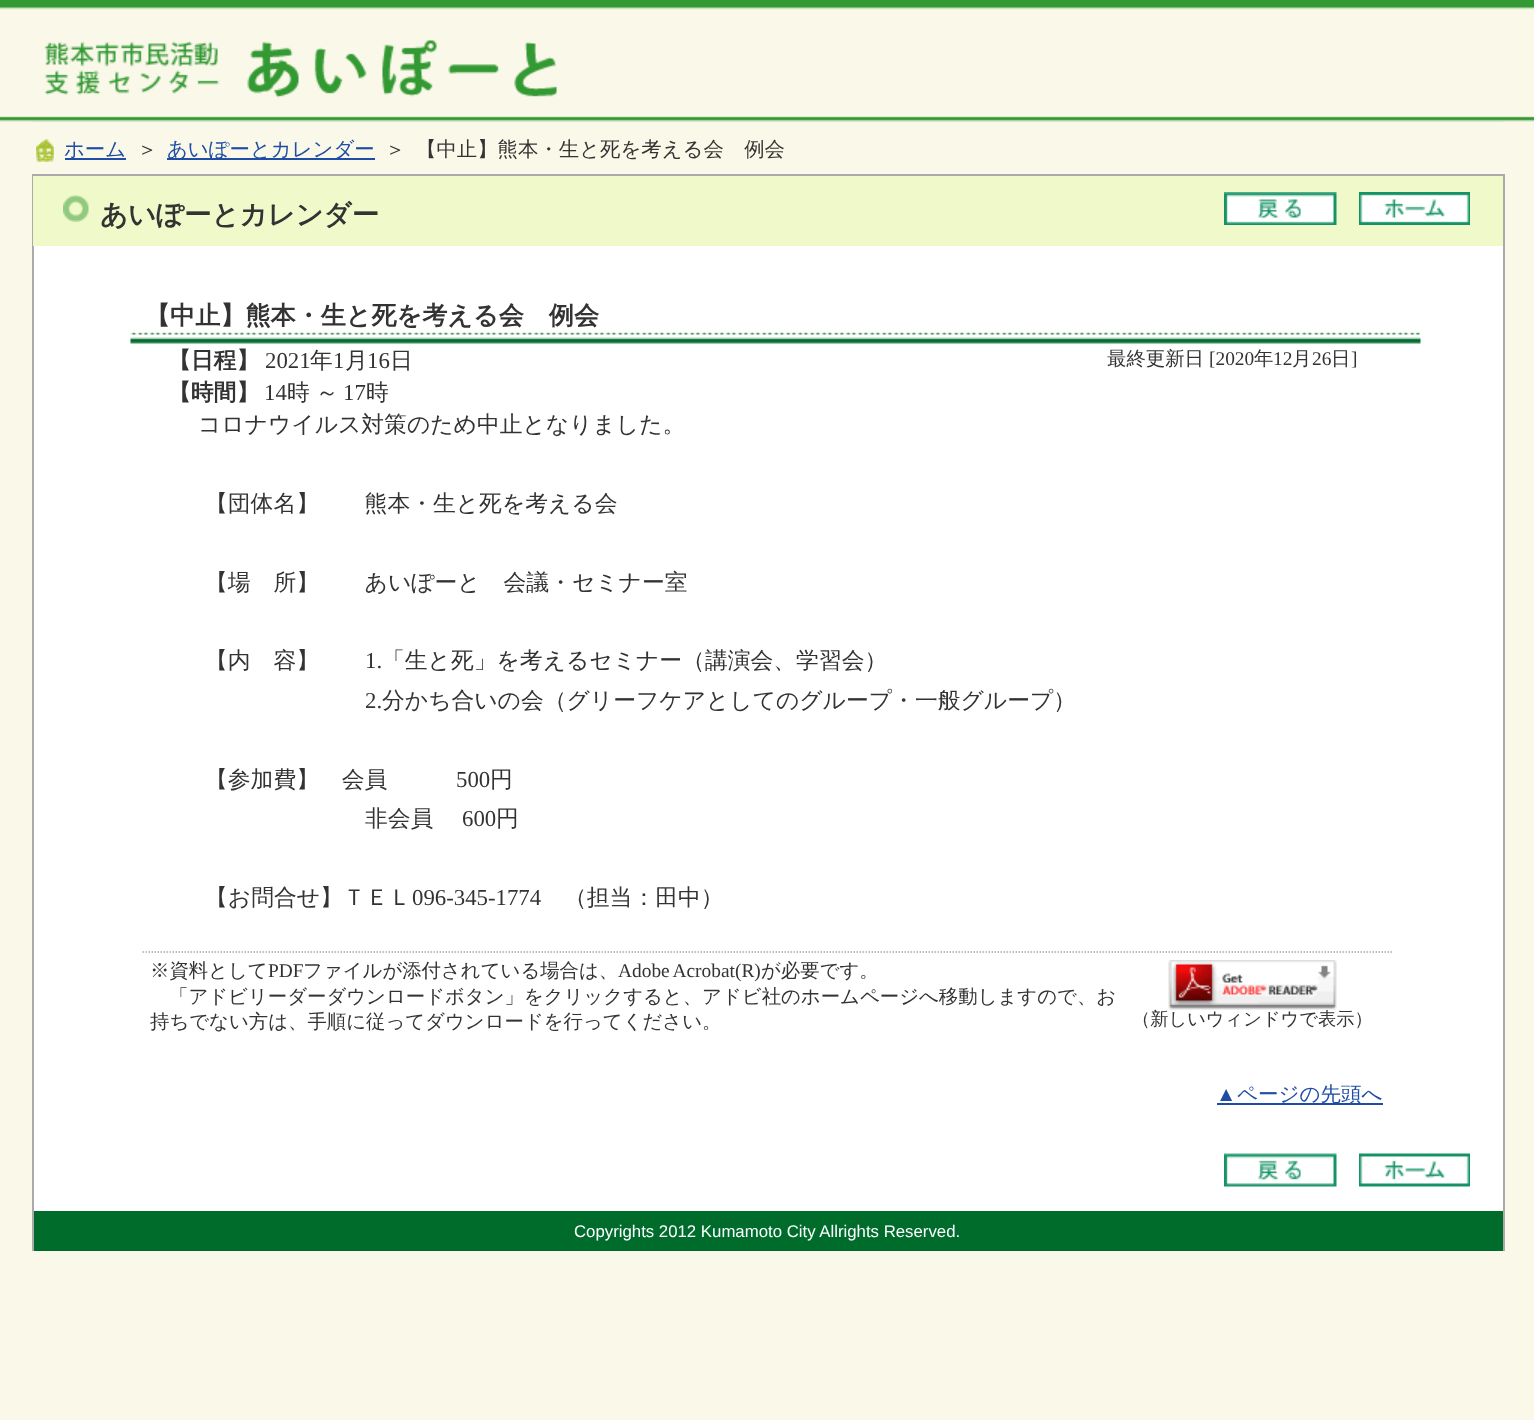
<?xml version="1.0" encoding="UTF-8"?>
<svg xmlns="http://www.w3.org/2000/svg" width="1534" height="1420">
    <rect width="100%" height="100%" fill="#FAF8E8"/>
    <image x="0" y="0" width="1534" height="122" href="img_01.png"/>
    <image x="33" y="40" width="1470" height="82" href="img_02.png"/>
    <image x="36" y="139" width="18" height="23" href="img_03.png"/>
    <rect x="65" y="158" width="61" height="2" fill="#1F4CA5"/>
    <text x="64" y="156" font-family="WenQuanYi Zen Hei" font-size="20.4" font-weight="500" fill="#1F4CA5">ホーム</text>
    <text x="137" y="156" font-family="WenQuanYi Zen Hei" font-size="20.4" font-weight="500" fill="#333333">＞</text>
    <rect x="167" y="158" width="208" height="2" fill="#1F4CA5"/>
    <text x="167" y="156" font-family="WenQuanYi Zen Hei" font-size="20.4" font-weight="500" fill="#1F4CA5">あいぽーとカレンダー</text>
    <text x="385" y="156" font-family="WenQuanYi Zen Hei" font-size="20.4" font-weight="500" fill="#333333">＞</text>
    <text x="416" y="156" font-family="WenQuanYi Zen Hei" font-size="20.4" font-weight="500" fill="#333333">【中止】熊本・生と死を考える会　例会</text>
    <rect x="34" y="246" width="1469" height="965" fill="#FFFFFF"/>
    <rect x="32" y="174" width="1473" height="2" fill="#AAAAAA"/>
    <rect x="1503" y="174" width="2" height="1077" fill="#AAAAAA"/>
    <rect x="32" y="174" width="2" height="1077" fill="#AAAAAA"/>
    <rect x="33" y="176" width="1470" height="70" fill="#F0F9CA"/>
    <image x="63" y="195" width="26" height="27" href="img_04.png"/>
    <text x="100" y="224" font-family="WenQuanYi Zen Hei" font-size="27.4" font-weight="700" fill="#333333">あいぽーとカレンダー</text>
    <image x="1224" y="192" width="113" height="33" href="img_05.png"/>
    <image x="1359" y="192" width="111" height="33" href="img_06.png"/>
    <image x="130" y="332" width="1291" height="12" href="img_07.png"/>
    <text x="145" y="324" font-family="WenQuanYi Zen Hei" font-size="25.1" font-weight="700" fill="#333333">【中止】熊本・生と死を考える会　例会</text>
    <text x="168" y="368" font-family="WenQuanYi Zen Hei" font-size="22.8" font-weight="700" fill="#333333">【日程】</text>
    <text x="265" y="368" font-family="Liberation Serif" font-size="22.8" fill="#333333">2021</text>
    <text x="310" y="368" font-family="WenQuanYi Zen Hei" font-size="22.8" font-weight="500" fill="#333333">年</text>
    <text x="333" y="368" font-family="Liberation Serif" font-size="22.8" fill="#333333">1</text>
    <text x="345" y="368" font-family="WenQuanYi Zen Hei" font-size="22.8" font-weight="500" fill="#333333">月</text>
    <text x="367" y="368" font-family="Liberation Serif" font-size="22.8" fill="#333333">16</text>
    <text x="390" y="368" font-family="WenQuanYi Zen Hei" font-size="22.8" font-weight="500" fill="#333333">日</text>
    <text x="1107" y="365" font-family="WenQuanYi Zen Hei" font-size="19.4" font-weight="500" fill="#333333">最終更新日</text>
    <text x="1209" y="365" font-family="Liberation Serif" font-size="19.4" fill="#333333">[2020</text>
    <text x="1254" y="365" font-family="WenQuanYi Zen Hei" font-size="19.4" font-weight="500" fill="#333333">年</text>
    <text x="1273" y="365" font-family="Liberation Serif" font-size="19.4" fill="#333333">12</text>
    <text x="1292" y="365" font-family="WenQuanYi Zen Hei" font-size="19.4" font-weight="500" fill="#333333">月</text>
    <text x="1312" y="365" font-family="Liberation Serif" font-size="19.4" fill="#333333">26</text>
    <text x="1331" y="365" font-family="WenQuanYi Zen Hei" font-size="19.4" font-weight="500" fill="#333333">日</text>
    <text x="1351" y="365" font-family="Liberation Serif" font-size="19.4" fill="#333333">]</text>
    <text x="168" y="400" font-family="WenQuanYi Zen Hei" font-size="22.8" font-weight="700" fill="#333333">【時間】</text>
    <text x="264" y="400" font-family="Liberation Serif" font-size="22.8" fill="#333333">14</text>
    <text x="287" y="400" word-spacing="-1" font-family="WenQuanYi Zen Hei" font-size="22.8" font-weight="500" fill="#333333">時 ～</text>
    <text x="343" y="400" font-family="Liberation Serif" font-size="22.8" fill="#333333">17</text>
    <text x="366" y="400" font-family="WenQuanYi Zen Hei" font-size="22.8" font-weight="500" fill="#333333">時</text>
    <text x="198" y="432" font-family="WenQuanYi Zen Hei" font-size="22.8" font-weight="500" fill="#333333">コロナウイルス対策のため中止となりました。</text>
    <text x="205" y="511" font-family="WenQuanYi Zen Hei" font-size="22.8" font-weight="500" fill="#333333">【団体名】　　熊本・生と死を考える会</text>
    <text x="205" y="590" font-family="WenQuanYi Zen Hei" font-size="22.8" font-weight="500" fill="#333333">【場　所】　　あいぽーと　会議・セミナー室</text>
    <text x="205" y="668" font-family="WenQuanYi Zen Hei" font-size="22.8" font-weight="500" fill="#333333">【内　容】</text>
    <text x="365" y="668" font-family="Liberation Serif" font-size="22.8" fill="#333333">1.</text>
    <text x="382" y="668" font-family="WenQuanYi Zen Hei" font-size="22.8" font-weight="500" fill="#333333">「生と死」を考えるセミナー（講演会、学習会）</text>
    <text x="365" y="708" font-family="Liberation Serif" font-size="22.8" fill="#333333">2.</text>
    <text x="382" y="708" font-family="WenQuanYi Zen Hei" font-size="22.8" font-weight="500" fill="#333333">分かち合いの会（グリーフケアとしてのグループ・一般グループ）</text>
    <text x="205" y="787" font-family="WenQuanYi Zen Hei" font-size="22.8" font-weight="500" fill="#333333">【参加費】　会員</text>
    <text x="456" y="787" font-family="Liberation Serif" font-size="22.8" fill="#333333">500</text>
    <text x="490" y="787" font-family="WenQuanYi Zen Hei" font-size="22.8" font-weight="500" fill="#333333">円</text>
    <text x="365" y="826" font-family="WenQuanYi Zen Hei" font-size="22.8" font-weight="500" fill="#333333">非会員</text>
    <text x="462" y="826" font-family="Liberation Serif" font-size="22.8" fill="#333333">600</text>
    <text x="496" y="826" font-family="WenQuanYi Zen Hei" font-size="22.8" font-weight="500" fill="#333333">円</text>
    <text x="205" y="905" font-family="WenQuanYi Zen Hei" font-size="22.8" font-weight="500" fill="#333333">【お問合せ】ＴＥＬ</text>
    <text x="412" y="905" font-family="Liberation Serif" font-size="22.8" fill="#333333">096-345-1774</text>
    <text x="564" y="905" font-family="WenQuanYi Zen Hei" font-size="22.8" font-weight="500" fill="#333333">（担当：田中）</text>
    <path d="M 142.5 952 H 1392" fill="none" stroke="#AAAAAA" stroke-width="1.5" stroke-dasharray="1.5 1.5"/>
    <text x="150" y="977" font-family="WenQuanYi Zen Hei" font-size="19.4" font-weight="500" fill="#333333">※資料として</text>
    <text x="268" y="977" font-family="Liberation Serif" font-size="19.4" fill="#333333">PDF</text>
    <text x="303" y="977" font-family="WenQuanYi Zen Hei" font-size="19.4" font-weight="500" fill="#333333">ファイルが添付されている場合は、</text>
    <text x="618" y="977" word-spacing="-1" font-family="Liberation Serif" font-size="19.4" fill="#333333">Adobe Acrobat(R)</text>
    <text x="761" y="977" font-family="WenQuanYi Zen Hei" font-size="19.4" font-weight="500" fill="#333333">が必要です。</text>
    <text x="169" y="1003" font-family="WenQuanYi Zen Hei" font-size="19.4" font-weight="500" fill="#333333">「アドビリーダーダウンロードボタン」をクリックすると、アドビ社のホームページへ移動しますので、お</text>
    <text x="150" y="1028" font-family="WenQuanYi Zen Hei" font-size="19.4" font-weight="500" fill="#333333">持ちでない方は、手順に従ってダウンロードを行ってください。</text>
    <image x="1168" y="960" width="169" height="50" href="img_08.png"/>
    <text x="1132" y="1025" font-family="WenQuanYi Zen Hei" font-size="18.25" font-weight="500" fill="#333333">（新しいウィンドウで表示）</text>
    <text x="1216" y="1101" font-family="Liberation Serif" font-size="20.5" fill="#1F4CA5">▲</text>
    <rect x="1217" y="1103" width="166" height="2" fill="#1F4CA5"/>
    <text x="1237" y="1101" font-family="WenQuanYi Zen Hei" font-size="20.5" font-weight="500" fill="#1F4CA5">ページの先頭へ</text>
    <image x="1224" y="1153" width="113" height="34" href="img_09.png"/>
    <image x="1359" y="1153" width="111" height="34" href="img_10.png"/>
    <rect x="34" y="1211" width="1469" height="40" fill="#006C2C"/>
    <text x="574" y="1237" font-family="Liberation Sans" font-size="16.8" fill="#FFFFFF">Copyrights 2012 Kumamoto City Allrights Reserved.</text>
</svg>
